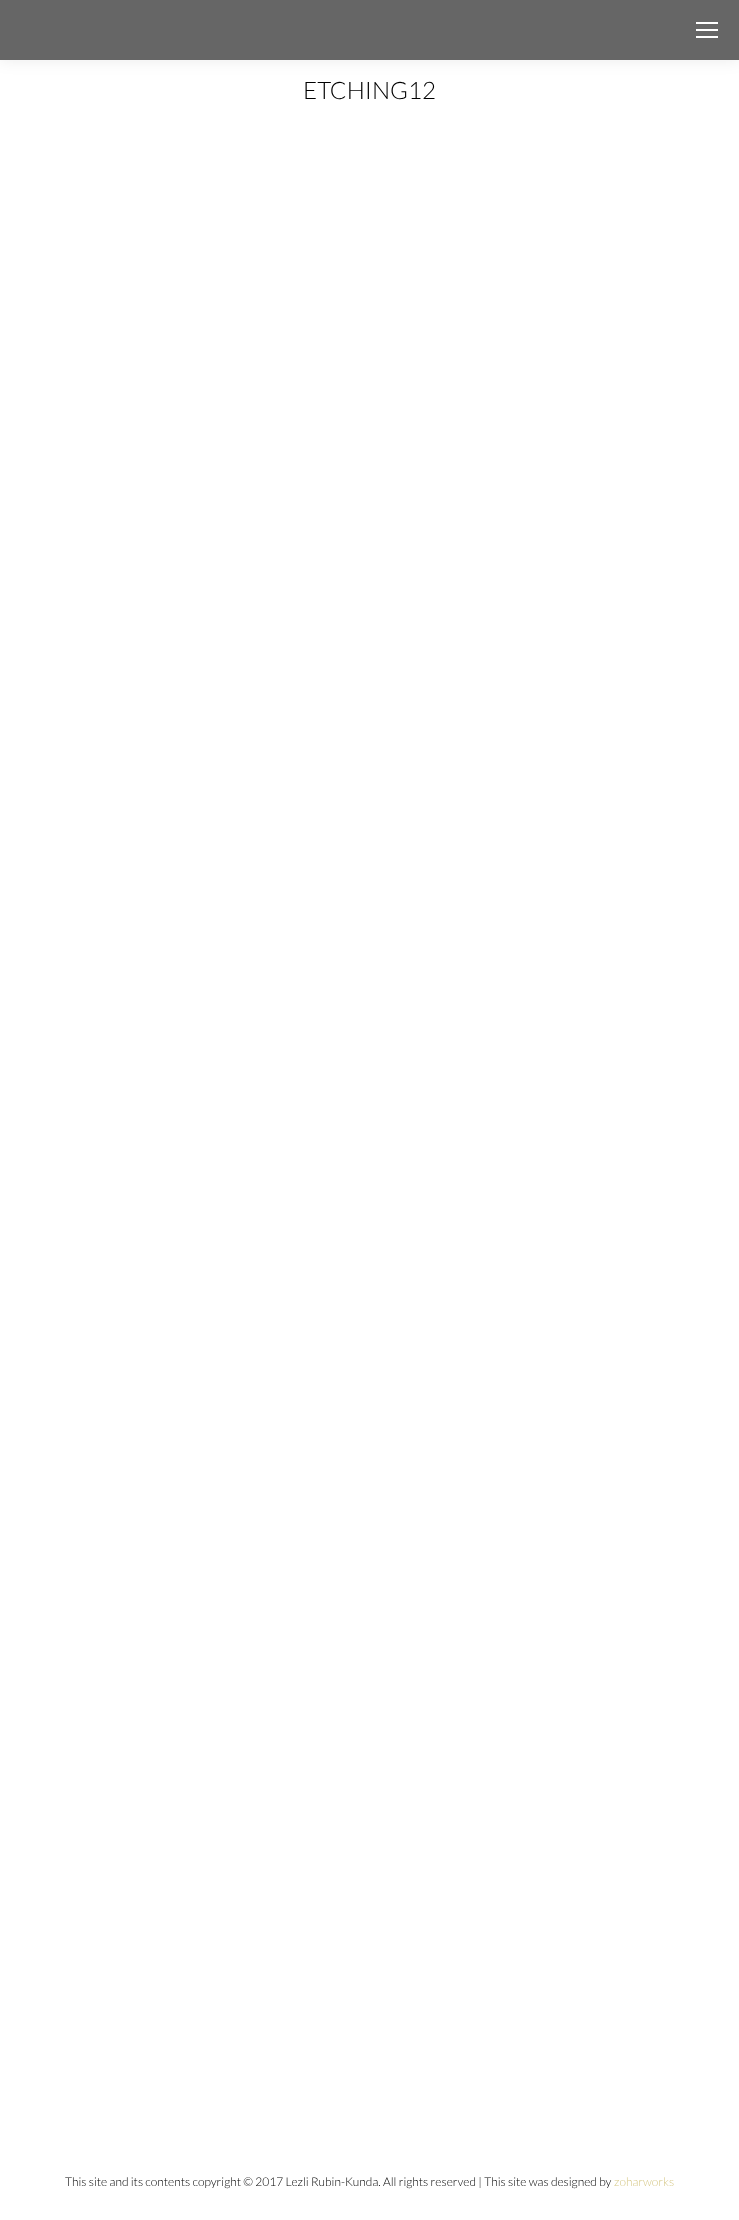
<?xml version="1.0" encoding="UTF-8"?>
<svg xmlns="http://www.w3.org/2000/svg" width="739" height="2220">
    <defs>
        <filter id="blur1" x="-50%" y="-200%" width="200%" height="500%"><feGaussianBlur stdDeviation="7.5"/></filter>
    </defs>
    <rect width="100%" height="100%" fill="#FFFFFF"/>
    <rect x="-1" y="-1" width="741" height="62" fill="#000000" fill-opacity="0.07" filter="url(#blur1)"/>
    <rect x="0" y="0" width="739" height="60" fill="#666666"/>
    <rect x="696" y="22" width="22" height="2" fill="#FFFFFF"/>
    <rect x="696" y="29" width="22" height="2" fill="#FFFFFF"/>
    <rect x="696" y="36" width="22" height="2" fill="#FFFFFF"/>
    <text x="303" y="99" font-family="Lato" font-size="24" font-weight="300" fill="#000000">ETCHING12</text>
    <text x="65" y="2186" font-family="Lato" font-size="12" font-weight="300" fill="#000000">This site and its contents copyright © 2017 Lezli Rubin-Kunda. All rights reserved | This site was designed by</text>
    <text x="614" y="2186" font-family="Lato" font-size="12" font-weight="300" fill="#D7C989">zoharworks</text>
</svg>
